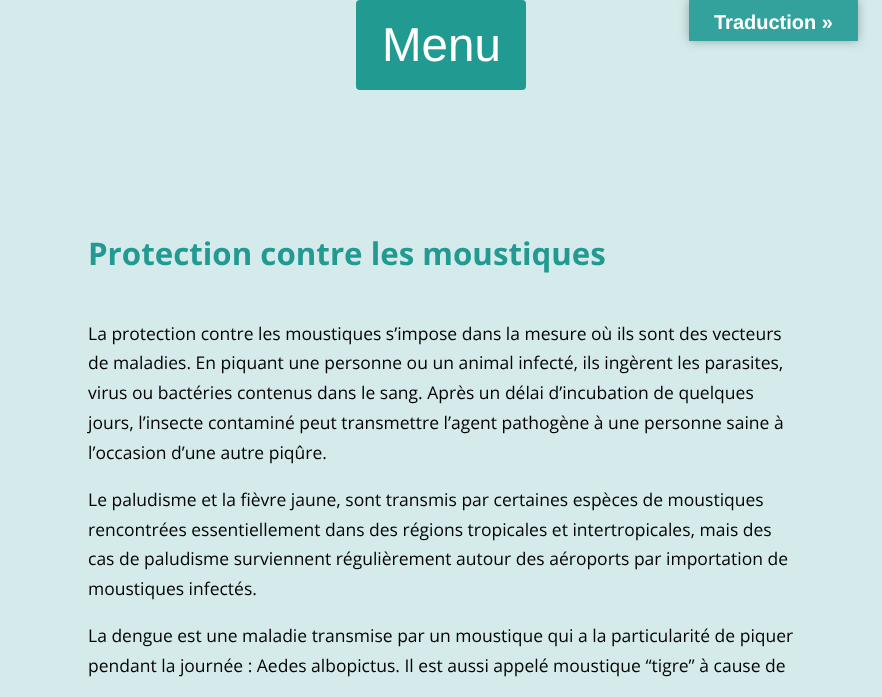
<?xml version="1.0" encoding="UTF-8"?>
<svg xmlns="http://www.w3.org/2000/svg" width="882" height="697">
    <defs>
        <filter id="blur1" x="-50%" y="-200%" width="200%" height="500%"><feGaussianBlur stdDeviation="5.5"/></filter>
    </defs>
    <rect width="100%" height="100%" fill="#D5EBEB"/>
    <rect x="689" y="0" width="169" height="41" fill="#000000" fill-opacity="0.3" filter="url(#blur1)"/>
    <rect x="689" y="0" width="169" height="41" fill="#33A29C"/>
    <text x="714" y="29" font-family="Liberation Sans" font-size="20" font-weight="700" fill="#FFFFFF">Traduction »</text>
    <rect x="356" y="0" width="170" height="90" rx="4" fill="#219A92"/>
    <text x="382" y="61" font-family="Liberation Sans" font-size="47.5" fill="#FFFFFF">Menu</text>
    <text x="88" y="265" font-family="Open Sans" font-size="31.25" font-weight="700" fill="#229A92">Protection contre les moustiques</text>
    <text font-family="Open Sans" font-size="17.5" fill="#000000">
        <tspan x="88" y="340">La protection contre les moustiques s’impose dans la mesure où ils sont des vecteurs</tspan>
        <tspan x="88" y="369">de maladies. En piquant une personne ou un animal infecté, ils ingèrent les parasites,</tspan>
        <tspan x="88" y="399">virus ou bactéries contenus dans le sang. Après un délai d’incubation de quelques</tspan>
        <tspan x="88" y="429">jours, l’insecte contaminé peut transmettre l’agent pathogène à une personne saine à</tspan>
        <tspan x="88" y="459">l’occasion d’une autre piqûre.</tspan>
    </text>
    <text font-family="Open Sans" font-size="17.5" fill="#000000">
        <tspan x="88" y="506">Le paludisme et la fièvre jaune, sont transmis par certaines espèces de moustiques</tspan>
        <tspan x="88" y="536">rencontrées essentiellement dans des régions tropicales et intertropicales, mais des</tspan>
        <tspan x="88" y="565">cas de paludisme surviennent régulièrement autour des aéroports par importation de</tspan>
        <tspan x="88" y="595">moustiques infectés.</tspan>
    </text>
    <text font-family="Open Sans" font-size="17.5" fill="#000000">
        <tspan x="88" y="642">La dengue est une maladie transmise par un moustique qui a la particularité de piquer</tspan>
        <tspan x="88" y="672">pendant la journée : Aedes albopictus. Il est aussi appelé moustique “tigre” à cause de</tspan>
    </text>
</svg>
